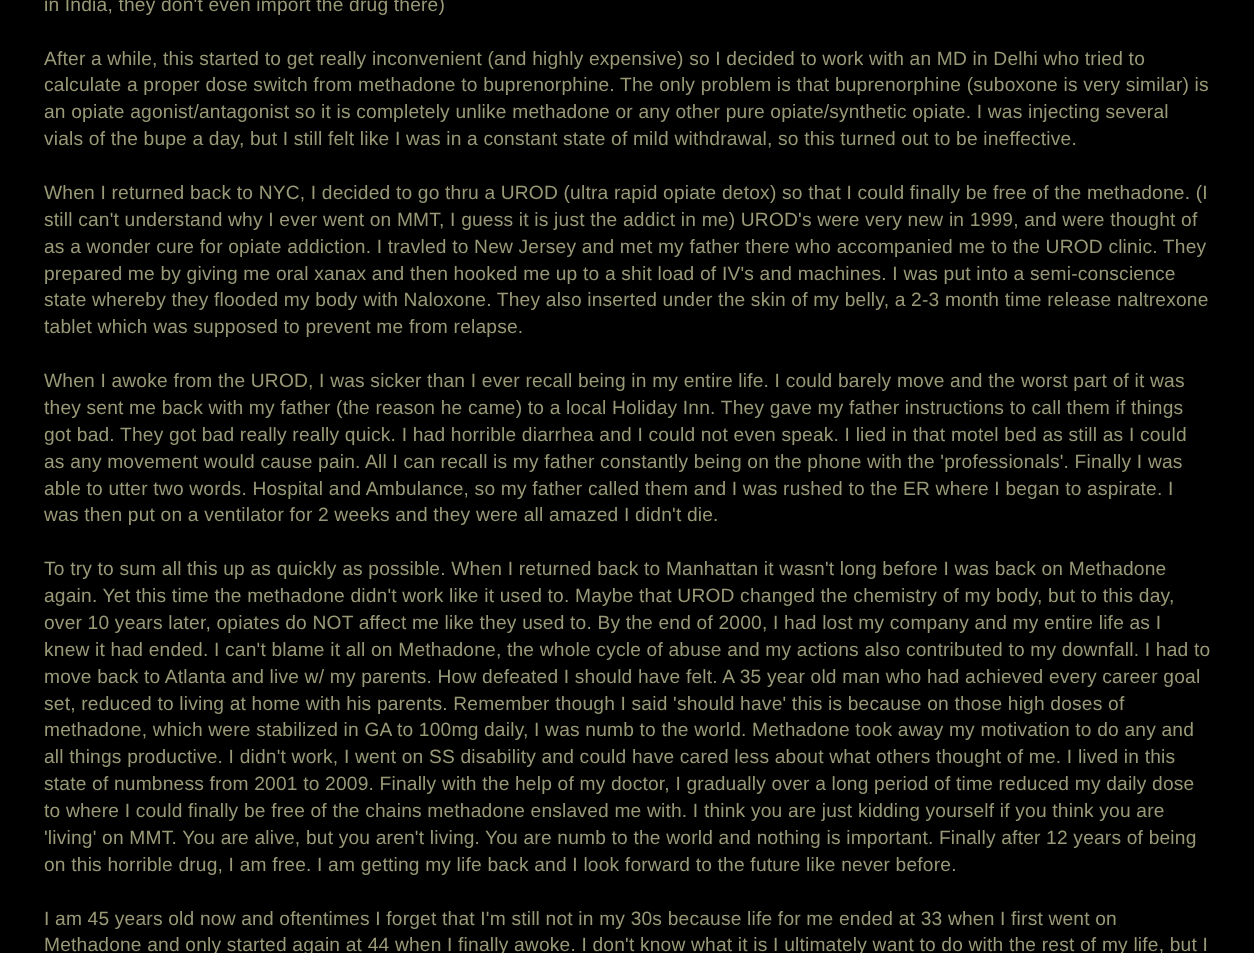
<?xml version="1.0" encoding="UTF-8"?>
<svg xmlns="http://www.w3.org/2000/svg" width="1254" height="953">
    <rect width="100%" height="100%" fill="#000000"/>
    <text x="44" y="11" font-family="Liberation Sans" font-size="19.2" letter-spacing="0.19" fill="#999977">in India, they don't even import the drug there)</text>
    <text font-family="Liberation Sans" font-size="19.2" letter-spacing="0.19" fill="#999977">
        <tspan x="44" y="65">After a while, this started to get really inconvenient (and highly expensive) so I decided to work with an MD in Delhi who tried to</tspan>
        <tspan x="44" y="91">calculate a proper dose switch from methadone to buprenorphine. The only problem is that buprenorphine (suboxone is very similar) is</tspan>
        <tspan x="44" y="118">an opiate agonist/antagonist so it is completely unlike methadone or any other pure opiate/synthetic opiate. I was injecting several</tspan>
        <tspan x="44" y="145">vials of the bupe a day, but I still felt like I was in a constant state of mild withdrawal, so this turned out to be ineffective.</tspan>
    </text>
    <text font-family="Liberation Sans" font-size="19.2" letter-spacing="0.19" fill="#999977">
        <tspan x="44" y="199">When I returned back to NYC, I decided to go thru a UROD (ultra rapid opiate detox) so that I could finally be free of the methadone. (I</tspan>
        <tspan x="44" y="226">still can't understand why I ever went on MMT, I guess it is just the addict in me) UROD's were very new in 1999, and were thought of</tspan>
        <tspan x="44" y="253">as a wonder cure for opiate addiction. I travled to New Jersey and met my father there who accompanied me to the UROD clinic. They</tspan>
        <tspan x="44" y="280">prepared me by giving me oral xanax and then hooked me up to a shit load of IV's and machines. I was put into a semi-conscience</tspan>
        <tspan x="44" y="306">state whereby they flooded my body with Naloxone. They also inserted under the skin of my belly, a 2-3 month time release naltrexone</tspan>
        <tspan x="44" y="333">tablet which was supposed to prevent me from relapse.</tspan>
    </text>
    <text font-family="Liberation Sans" font-size="19.2" letter-spacing="0.19" fill="#999977">
        <tspan x="44" y="387">When I awoke from the UROD, I was sicker than I ever recall being in my entire life. I could barely move and the worst part of it was</tspan>
        <tspan x="44" y="414">they sent me back with my father (the reason he came) to a local Holiday Inn. They gave my father instructions to call them if things</tspan>
        <tspan x="44" y="441">got bad. They got bad really really quick. I had horrible diarrhea and I could not even speak. I lied in that motel bed as still as I could</tspan>
        <tspan x="44" y="468">as any movement would cause pain. All I can recall is my father constantly being on the phone with the 'professionals'. Finally I was</tspan>
        <tspan x="44" y="495">able to utter two words. Hospital and Ambulance, so my father called them and I was rushed to the ER where I began to aspirate. I</tspan>
        <tspan x="44" y="521">was then put on a ventilator for 2 weeks and they were all amazed I didn't die.</tspan>
    </text>
    <text font-family="Liberation Sans" font-size="19.2" letter-spacing="0.19" fill="#999977">
        <tspan x="44" y="575">To try to sum all this up as quickly as possible. When I returned back to Manhattan it wasn't long before I was back on Methadone</tspan>
        <tspan x="44" y="602">again. Yet this time the methadone didn't work like it used to. Maybe that UROD changed the chemistry of my body, but to this day,</tspan>
        <tspan x="44" y="629">over 10 years later, opiates do NOT affect me like they used to. By the end of 2000, I had lost my company and my entire life as I</tspan>
        <tspan x="44" y="656">knew it had ended. I can't blame it all on Methadone, the whole cycle of abuse and my actions also contributed to my downfall. I had to</tspan>
        <tspan x="44" y="683">move back to Atlanta and live w/ my parents. How defeated I should have felt. A 35 year old man who had achieved every career goal</tspan>
        <tspan x="44" y="710">set, reduced to living at home with his parents. Remember though I said 'should have' this is because on those high doses of</tspan>
        <tspan x="44" y="736">methadone, which were stabilized in GA to 100mg daily, I was numb to the world. Methadone took away my motivation to do any and</tspan>
        <tspan x="44" y="763">all things productive. I didn't work, I went on SS disability and could have cared less about what others thought of me. I lived in this</tspan>
        <tspan x="44" y="790">state of numbness from 2001 to 2009. Finally with the help of my doctor, I gradually over a long period of time reduced my daily dose</tspan>
        <tspan x="44" y="817">to where I could finally be free of the chains methadone enslaved me with. I think you are just kidding yourself if you think you are</tspan>
        <tspan x="44" y="844">'living' on MMT. You are alive, but you aren't living.</tspan>
    </text>
    <text x="485" y="844" font-family="Liberation Sans" font-size="19.2" letter-spacing="0.19" fill="#999977">You are numb to the world and nothing is important. Finally after 12 years of being</text>
    <text x="44" y="871" font-family="Liberation Sans" font-size="19.2" letter-spacing="0.19" fill="#999977">on this horrible drug, I am free. I am getting my life back and I look forward to the future like never before.</text>
    <text font-family="Liberation Sans" font-size="19.2" letter-spacing="0.19" fill="#999977">
        <tspan x="44" y="925">I am 45 years old now and oftentimes I forget that I'm still not in my 30s because life for me ended at 33 when I first went on</tspan>
        <tspan x="44" y="951">Methadone and only started again at 44 when I finally awoke. I don't know what it is I ultimately want to do with the rest of my life, but I</tspan>
    </text>
</svg>
